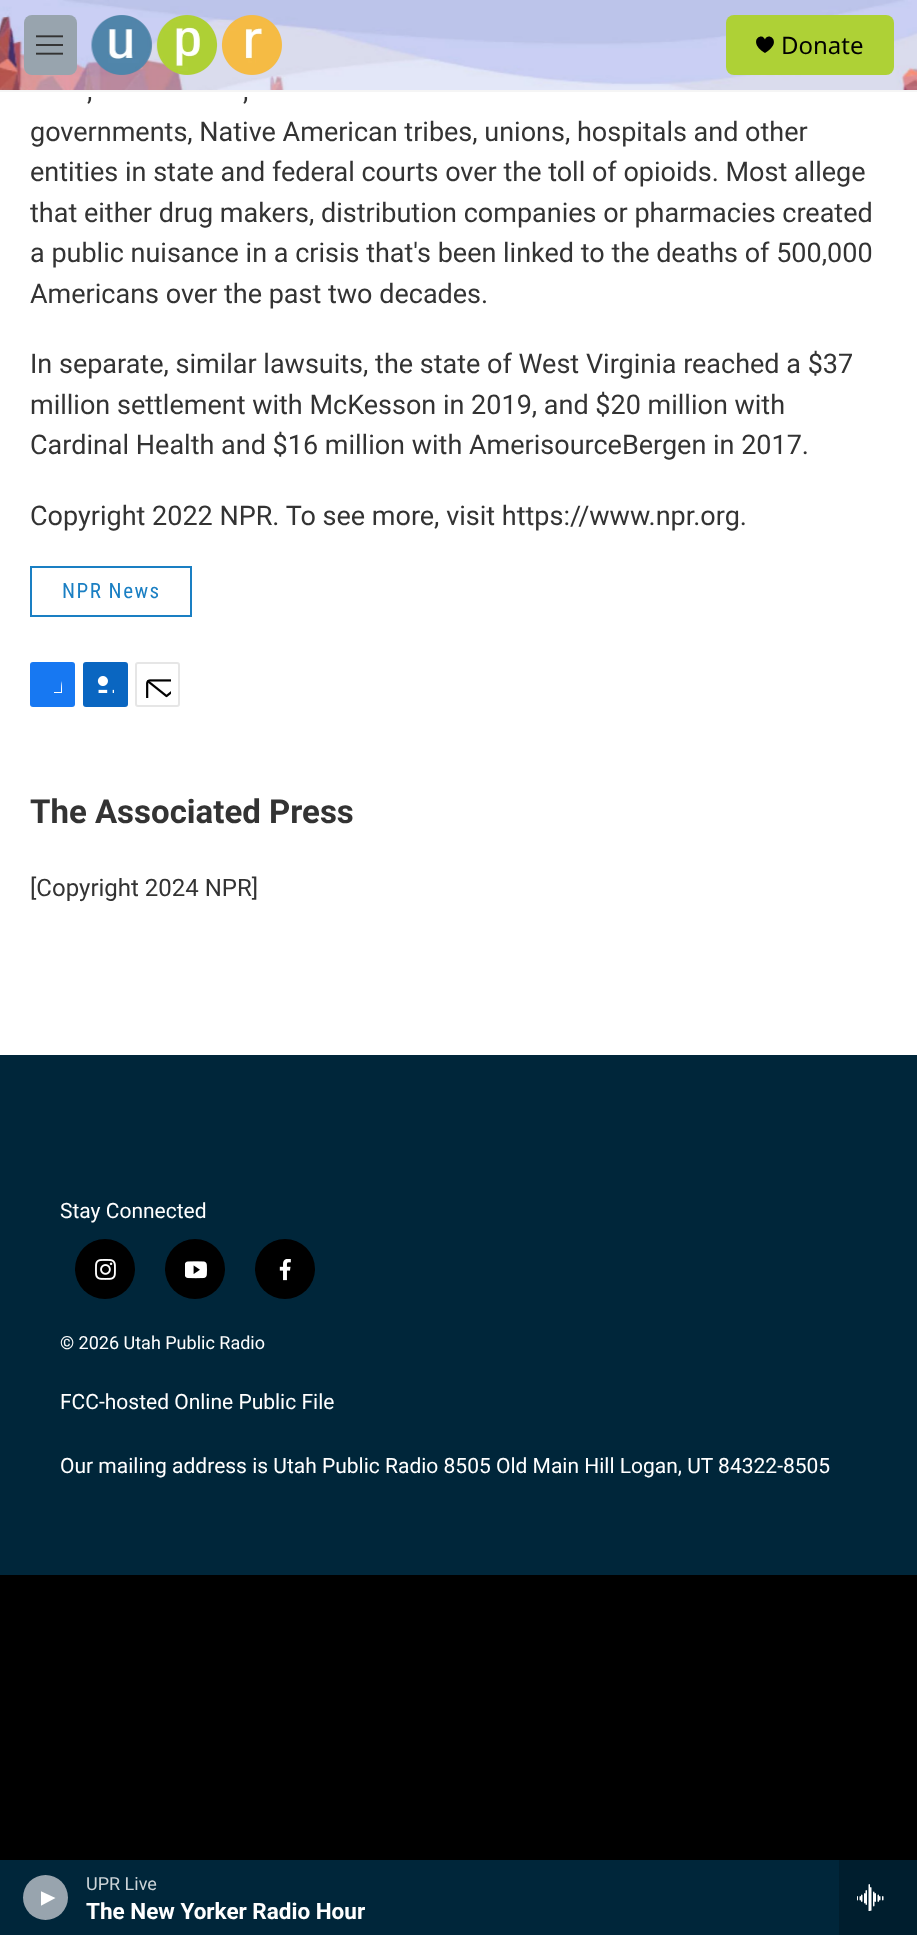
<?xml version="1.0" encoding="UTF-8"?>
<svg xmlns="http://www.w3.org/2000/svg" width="917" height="1935">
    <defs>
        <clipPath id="clip1"><rect x="41" y="1890" width="15" height="17"/></clipPath>
        <clipPath id="clip2"><rect x="44" y="675" width="18" height="18"/></clipPath>
    </defs>
    <rect width="100%" height="100%" fill="#FFFFFF"/>
    <rect x="0" y="90" width="917" height="2" fill="#F5F5F5"/>
    <image x="0" y="0" width="917" height="90" href="img_01.png"/>
    <rect x="24" y="15" width="53" height="60" rx="8" fill="#98A4AE"/>
    <image x="36" y="35" width="27" height="20" href="img_02.png"/>
    <image x="91" y="15" width="191" height="60" href="img_03.png"/>
    <rect x="726" y="15" width="168" height="60" rx="8" fill="#AED136"/>
    <path d="M 765 39.5 C 762 31.5 746.5 41.5 765 53 C 783.5 41.5 768 31.5 765 39.5 Z" fill="#000000"/>
    <text x="781" y="54" font-family="Noto Sans" font-size="24" fill="#000000">Donate</text>
    <rect x="0" y="1860" width="839" height="75" fill="#00263A"/>
    <circle cx="45.5" cy="1897.5" r="22.5" fill="#98A4AE"/>
    <g clip-path="url(#clip1)">
        <path d="M 40.5 1891 L 55.5 1898 L 40.5 1906 Z" fill="#FFFFFF"/>
    </g>
    <text x="86" y="1890" font-family="Roboto" font-size="18" fill="#CCD4D8">UPR Live</text>
    <text x="86" y="1919" font-family="'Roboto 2'" font-size="22.5" font-weight="700" fill="#FFFFFF">The New Yorker Radio Hour</text>
    <rect x="839" y="1860" width="78" height="75" fill="#001E2E"/>
    <image x="857" y="1884" width="27" height="27" href="img_04.png"/>
    <text x="87" y="100" font-family="Roboto" font-size="27" fill="#333333">,</text>
    <text x="243" y="100" font-family="Roboto" font-size="27" fill="#333333">,</text>
    <text font-family="Roboto" font-size="27" fill="#333333">
        <tspan x="30" y="141">governments, Native American tribes, unions, hospitals and other</tspan>
        <tspan x="30" y="181">entities in state and federal courts over the toll of opioids. Most allege</tspan>
        <tspan x="30" y="222">that either drug makers, distribution companies or pharmacies created</tspan>
        <tspan x="30" y="262">a public nuisance in a crisis that's been linked to the deaths of 500,000</tspan>
        <tspan x="30" y="303">Americans over the past two decades.</tspan>
    </text>
    <text font-family="Roboto" font-size="27" fill="#333333">
        <tspan x="30" y="373">In separate, similar lawsuits, the state of West Virginia reached a $37</tspan>
        <tspan x="30" y="414">million settlement with McKesson in 2019, and $20 million with</tspan>
        <tspan x="30" y="454">Cardinal Health and $16 million with AmerisourceBergen in 2017.</tspan>
    </text>
    <text x="30" y="525" font-family="Roboto" font-size="27" fill="#333333">Copyright 2022 NPR. To see more, visit https://www.npr.org.</text>
    <rect x="31" y="567" width="160" height="49" fill="none" stroke="#1A7FC3" stroke-width="2"/>
    <text x="62" y="598" font-family="Roboto Condensed" font-size="21" letter-spacing="1.5" fill="#1A7FC3">NPR News</text>
    <rect x="30" y="662" width="45" height="45" rx="3" fill="#1778F2"/>
    <g clip-path="url(#clip2)">
        <path d="M 68 707 H 61 V 699 H 54 V 692 H 61 C 61 679.5 62 674 75 676 V 683 C 66.5 683 68 684.5 68 692 H 75 L 74 699 H 68 Z" fill="#FFFFFF"/>
    </g>
    <rect x="83" y="662" width="45" height="45" rx="3" fill="#0A66C1"/>
    <image x="97" y="676" width="17" height="17" href="img_05.png"/>
    <rect x="136" y="663" width="43" height="43" rx="2" fill="none" stroke="#E6E6E6" stroke-width="2"/>
    <image x="146" y="679" width="25" height="19" href="img_06.png"/>
    <text x="30" y="823" font-family="Roboto" font-size="33" font-weight="700" fill="#333333">The Associated Press</text>
    <text x="30" y="896" font-family="Roboto" font-size="24" fill="#333333">[Copyright 2024 NPR]</text>
    <rect x="0" y="1055" width="917" height="520" fill="#00263A"/>
    <text x="60" y="1218" font-family="Roboto" font-size="21" fill="#FFFFFF">Stay Connected</text>
    <circle cx="105" cy="1269" r="30" fill="#000000"/>
    <image x="95" y="1259" width="21" height="21" href="img_07.png"/>
    <circle cx="195" cy="1269" r="30" fill="#000000"/>
    <image x="185" y="1261" width="22" height="18" href="img_08.png"/>
    <circle cx="285" cy="1269" r="30" fill="#000000"/>
    <image x="279" y="1259" width="12" height="22" href="img_09.png"/>
    <text x="60" y="1349" font-family="Roboto" font-size="18" fill="#FFFFFF">© 2026 Utah Public Radio</text>
    <text x="60" y="1409" font-family="Roboto" font-size="21" fill="#FFFFFF">FCC-hosted Online Public File</text>
    <text x="60" y="1473" font-family="Roboto" font-size="21" fill="#FFFFFF">Our mailing address is Utah Public Radio 8505 Old Main Hill Logan, UT 84322-8505</text>
    <rect x="0" y="1575" width="917" height="285" fill="#000000"/>
</svg>
